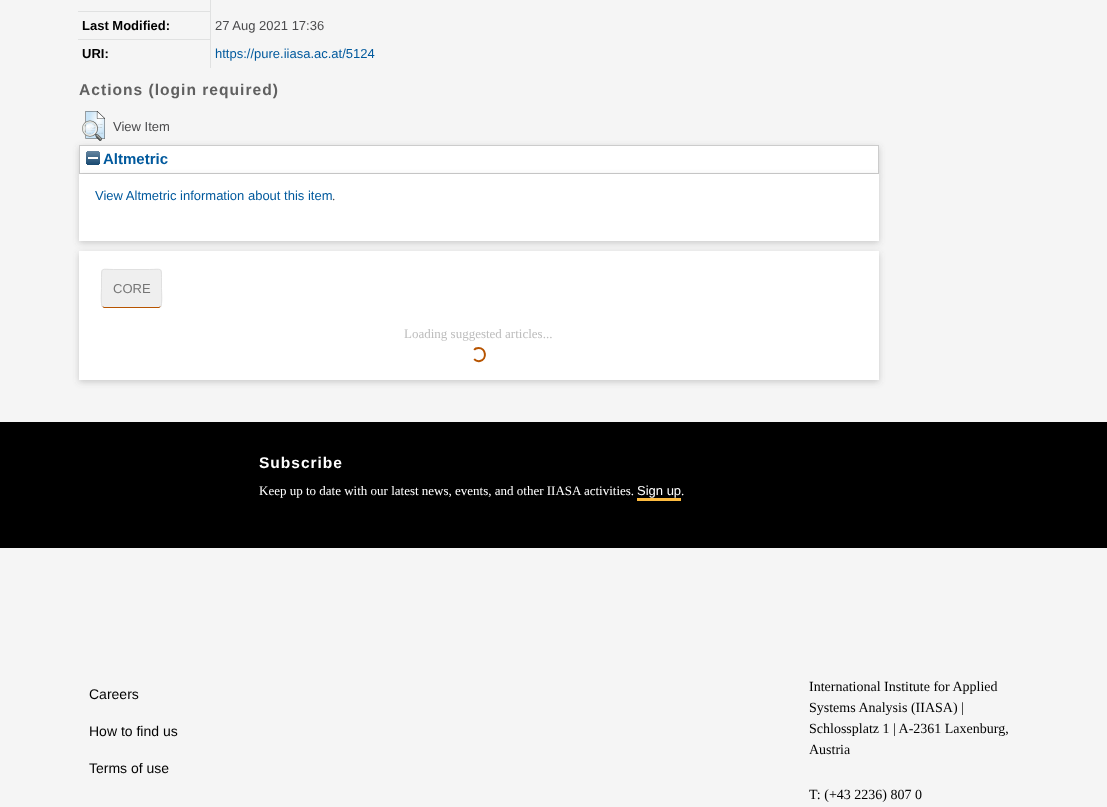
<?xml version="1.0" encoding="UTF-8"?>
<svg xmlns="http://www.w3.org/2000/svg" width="1107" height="807">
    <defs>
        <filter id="blur1" x="-50%" y="-200%" width="200%" height="500%"><feGaussianBlur stdDeviation="3"/></filter>
    </defs>
    <rect width="100%" height="100%" fill="#F5F5F5"/>
    <rect x="78" y="11" width="133" height="1" fill="#E0E1E1"/>
    <rect x="78" y="39" width="133" height="1" fill="#E0E1E1"/>
    <rect x="210" y="39" width="1" height="29" fill="#E0E1E1"/>
    <rect x="210" y="0" width="1" height="40" fill="#E0E1E1"/>
    <text x="82" y="30" font-family="Liberation Sans" font-size="13" font-weight="700" fill="#000000">Last Modified:</text>
    <text x="215" y="30" font-family="Liberation Sans" font-size="13" fill="#4B4B4D">27 Aug 2021 17:36</text>
    <text x="82" y="58" font-family="Liberation Sans" font-size="13" font-weight="700" fill="#000000">URI:</text>
    <text x="215" y="58" font-family="Liberation Sans" font-size="13" fill="#00599D">https://pure.iiasa.ac.at/5124</text>
    <text x="79" y="95" font-family="Liberation Sans" font-size="15.6" font-weight="700" letter-spacing="1" fill="#606060">Actions (login required)</text>
    <rect x="79" y="147" width="800" height="29" fill="#646464" fill-opacity="0.3" filter="url(#blur1)"/>
    <image x="82" y="111" width="23" height="30" href="img_01.png"/>
    <text x="113" y="131" font-family="Liberation Sans" font-size="13" fill="#4B4B4D">View Item</text>
    <rect x="79.5" y="145.5" width="799" height="28" fill="#FFFFFF" stroke="#CCCCCC"/>
    <image x="86" y="151" width="14" height="14" href="img_02.png"/>
    <text x="103" y="164" font-family="Liberation Sans" font-size="15" font-weight="700" fill="#00599D">Altmetric</text>
    <rect x="79" y="176" width="800" height="67" fill="#646464" fill-opacity="0.3" filter="url(#blur1)"/>
    <rect x="79" y="174" width="800" height="67" fill="#FFFFFF"/>
    <text x="95" y="200" font-family="Liberation Sans" font-size="13" fill="#00599D">View Altmetric information about this item</text>
    <text x="332" y="200" font-family="Liberation Serif" font-size="13" fill="#4B4B4D">.</text>
    <rect x="79" y="253" width="800" height="129" fill="#646464" fill-opacity="0.3" filter="url(#blur1)"/>
    <rect x="79" y="251" width="800" height="129" fill="#FFFFFF"/>
    <rect x="101" y="269" width="61" height="39" rx="3" fill="#EFEFEF"/>
    <path d="M 160.5 306.5 L 159 307.5 H 104 L 102.5 306.5" fill="none" stroke="#B75400"/>
    <path d="M 102.5 306.5 C 100.5 305 101.5 291.5 101.5 288.5 V 277.5 C 101.5 267 102 269.5 113.5 269.5 H 149.5 C 161 269.5 161.5 267 161.5 277.5 V 288.5 C 161.5 291.5 162.5 305 160.5 306.5" fill="none" stroke="#E0E0E0"/>
    <text x="113" y="293" font-family="Liberation Sans" font-size="13" fill="#757575">CORE</text>
    <text x="404" y="338" font-family="Liberation Serif" font-size="13" fill="#BDBDBD">Loading suggested articles...</text>
    <path d="M 474 350 C 475 348.5 477 348 478.5 348 C 486 348 487.5 359.5 480 361 C 477.5 361.5 475.5 360.5 474 359" fill="none" stroke="#B75400" stroke-width="2"/>
    <path d="M 474 359 C 471.5 356.5 471.5 352.5 474 350" fill="none" stroke="#FFFFFF" stroke-width="2"/>
    <rect x="0" y="422" width="1107" height="126" fill="#000000"/>
    <text x="259" y="468" font-family="Liberation Sans" font-size="15.5" font-weight="700" letter-spacing="1" fill="#FFFFFF">Subscribe</text>
    <text x="259" y="495" font-family="Liberation Serif" font-size="13" fill="#FFFFFF">Keep up to date with our latest news, events, and other IIASA activities.</text>
    <text x="637" y="495" font-family="Liberation Sans" font-size="13" fill="#FFFFFF">Sign up</text>
    <rect x="637" y="498" width="44" height="3" fill="#FDBB40"/>
    <text x="681" y="495" font-family="Liberation Serif" font-size="13" fill="#FFFFFF">.</text>
    <text x="89" y="699" font-family="Liberation Sans" font-size="14" fill="#000000">Careers</text>
    <text x="89" y="736" font-family="Liberation Sans" font-size="14" fill="#000000">How to find us</text>
    <text x="89" y="773" font-family="Liberation Sans" font-size="14" fill="#000000">Terms of use</text>
    <text font-family="Liberation Serif" font-size="14" fill="#000000">
        <tspan x="809" y="691">International Institute for Applied</tspan>
        <tspan x="809" y="712">Systems Analysis (IIASA) |</tspan>
        <tspan x="809" y="733">Schlossplatz 1 | A-2361 Laxenburg,</tspan>
        <tspan x="809" y="754">Austria</tspan>
    </text>
    <text x="809" y="799" font-family="Liberation Serif" font-size="14" fill="#000000">T: (+43 2236) 807 0</text>
</svg>
